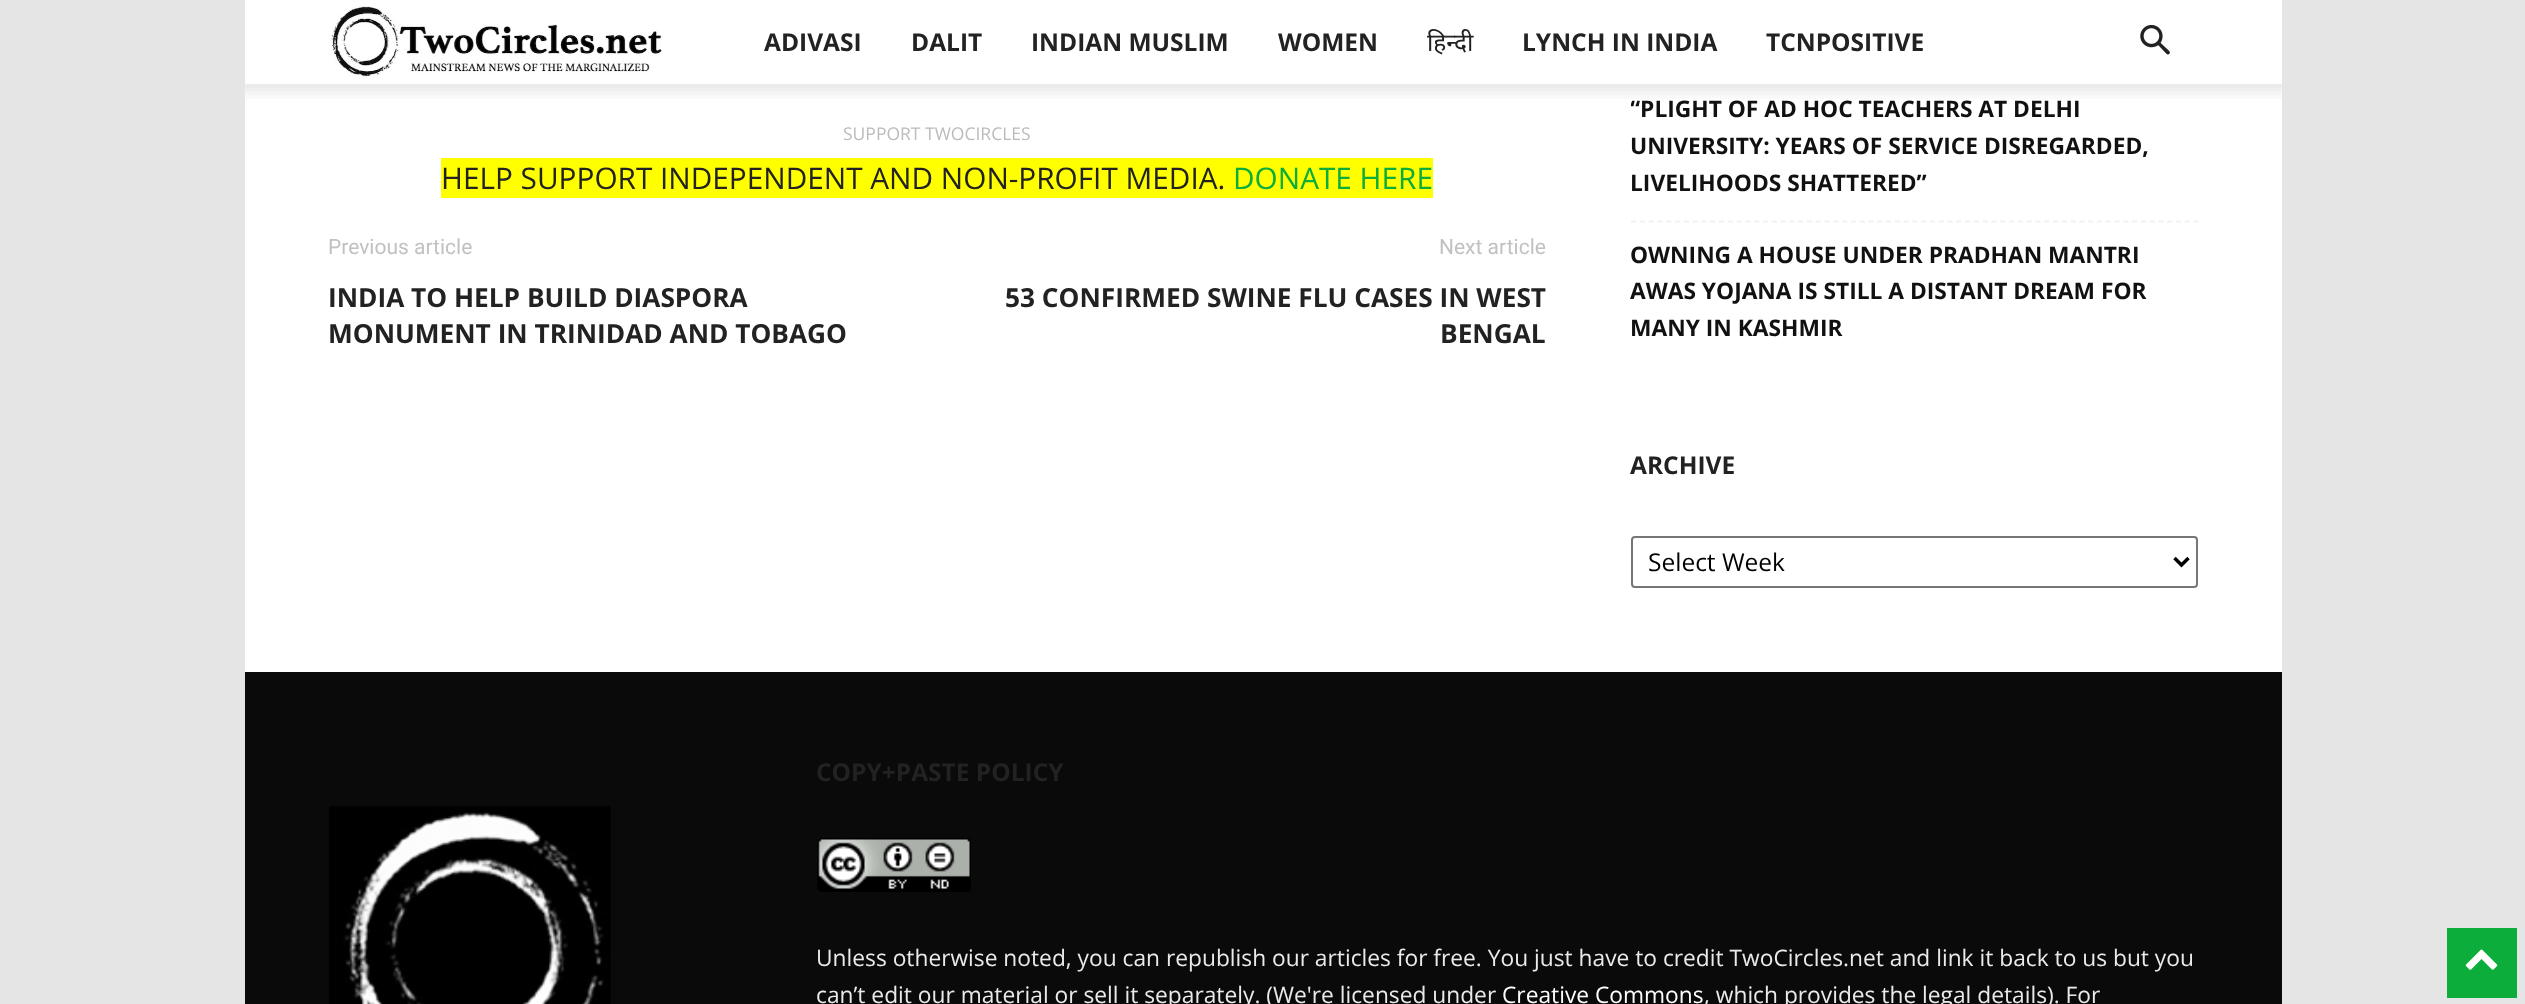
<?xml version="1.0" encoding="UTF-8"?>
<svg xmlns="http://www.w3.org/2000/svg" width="2525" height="1004">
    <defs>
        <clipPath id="clip1"><rect x="1631" y="0" width="567" height="390"/></clipPath>
    </defs>
    <rect width="100%" height="100%" fill="#E5E5E5"/>
    <rect x="245" y="0" width="2037" height="672" fill="#FFFFFF"/>
    <image x="331" y="6" width="331" height="71" href="img_01.png"/>
    <text x="764" y="51" font-family="Open Sans" font-size="24.5" font-weight="700" fill="#222222">ADIVASI</text>
    <text x="911" y="51" font-family="Open Sans" font-size="24.5" font-weight="700" fill="#222222">DALIT</text>
    <text x="1031" y="51" font-family="Open Sans" font-size="24.5" font-weight="700" fill="#222222">INDIAN MUSLIM</text>
    <text x="1278" y="51" font-family="Open Sans" font-size="24.5" font-weight="700" fill="#222222">WOMEN</text>
    <text x="1427" y="51" font-family="Noto Sans" font-size="24.5" fill="#222222">हिन्दी</text>
    <text x="1522" y="51" font-family="Open Sans" font-size="24.5" font-weight="700" fill="#222222">LYNCH IN INDIA</text>
    <text x="1766" y="51" font-family="Open Sans" font-size="24.5" font-weight="700" fill="#222222">TCNPOSITIVE</text>
    <image x="2140" y="24" width="30" height="31" href="img_02.png"/>
    <image x="245" y="84" width="2037" height="15" href="img_03.png"/>
    <text x="843" y="140" font-family="Open Sans" font-size="17.5" fill="#BBBBBB">SUPPORT TWOCIRCLES</text>
    <rect x="441" y="158" width="992" height="40" fill="#FFFF00"/>
    <text x="441" y="189" font-family="Open Sans" font-size="29.75" fill="#222222">HELP SUPPORT INDEPENDENT AND NON-PROFIT MEDIA.</text>
    <text x="1233" y="189" font-family="Open Sans" font-size="29.75" fill="#0DAD3B">DONATE HERE</text>
    <text x="328" y="254" font-family="Roboto" font-size="21" fill="#C1C1C1">Previous article</text>
    <text font-family="Open Sans" font-size="26.25" font-weight="700" fill="#222222">
        <tspan x="328" y="307">INDIA TO HELP BUILD DIASPORA</tspan>
        <tspan x="328" y="343">MONUMENT IN TRINIDAD AND TOBAGO</tspan>
    </text>
    <text x="1439" y="254" font-family="Roboto" font-size="21" fill="#C1C1C1">Next article</text>
    <text x="1005" y="307" font-family="Open Sans" font-size="26.25" font-weight="700" fill="#222222">53 CONFIRMED SWINE FLU CASES IN WEST</text>
    <text x="1440" y="343" font-family="Open Sans" font-size="26.25" font-weight="700" fill="#222222">BENGAL</text>
    <path d="M 1631 221.5 H 2198" fill="none" stroke="#F1F1F1" stroke-width="1.8" stroke-dasharray="5.25 3.54"/>
    <g clip-path="url(#clip1)">
        <text x="1630" y="117" font-family="Open Sans" font-size="22.75" font-weight="700" fill="#111111">“PLIGHT OF AD HOC TEACHERS AT DELHI</text>
    </g>
    <text font-family="Open Sans" font-size="22.75" font-weight="700" fill="#111111">
        <tspan x="1630" y="154">UNIVERSITY: YEARS OF SERVICE DISREGARDED,</tspan>
        <tspan x="1630" y="191">LIVELIHOODS SHATTERED”</tspan>
    </text>
    <text font-family="Open Sans" font-size="22.75" font-weight="700" fill="#111111">
        <tspan x="1630" y="263">OWNING A HOUSE UNDER PRADHAN MANTRI</tspan>
        <tspan x="1630" y="299">AWAS YOJANA IS STILL A DISTANT DREAM FOR</tspan>
        <tspan x="1630" y="336">MANY IN KASHMIR</tspan>
    </text>
    <text x="1630" y="474" font-family="Open Sans" font-size="24.5" font-weight="700" fill="#222222">ARCHIVE</text>
    <rect x="1632" y="537" width="565" height="50" rx="3" fill="none" stroke="#767676" stroke-width="2"/>
    <path d="M 2174.5 558 L 2181.5 565 L 2188.5 558" fill="none" stroke="#000000" stroke-width="3.5"/>
    <text x="1648" y="571" font-family="Open Sans" font-size="24.5" fill="#000000">Select Week</text>
    <rect x="245" y="672" width="2037" height="332" fill="#0A0A0A"/>
    <image x="329" y="806" width="282" height="198" href="img_04.png"/>
    <text x="816" y="781" font-family="Open Sans" font-size="24.5" font-weight="700" fill="#222222">COPY+PASTE POLICY</text>
    <image x="817" y="838" width="154" height="54" href="img_05.png"/>
    <text font-family="Open Sans" font-size="22.75" fill="#EAEAEA">
        <tspan x="816" y="966">Unless otherwise noted, you can republish our articles for free. You just have to credit TwoCircles.net and link it back to us but you</tspan>
        <tspan x="816" y="1003">can’t edit our material or sell it separately. (We're licensed under</tspan>
    </text>
    <text x="1502" y="1003" font-family="Open Sans" font-size="22.75" fill="#FFFFFF">Creative Commons</text>
    <text x="1704" y="1003" font-family="Open Sans" font-size="22.75" fill="#EAEAEA">, which provides the legal details). For</text>
    <rect x="2447" y="928" width="70" height="70" fill="#0DAD3B"/>
    <image x="2465" y="949" width="33" height="21" href="img_06.png"/>
</svg>
